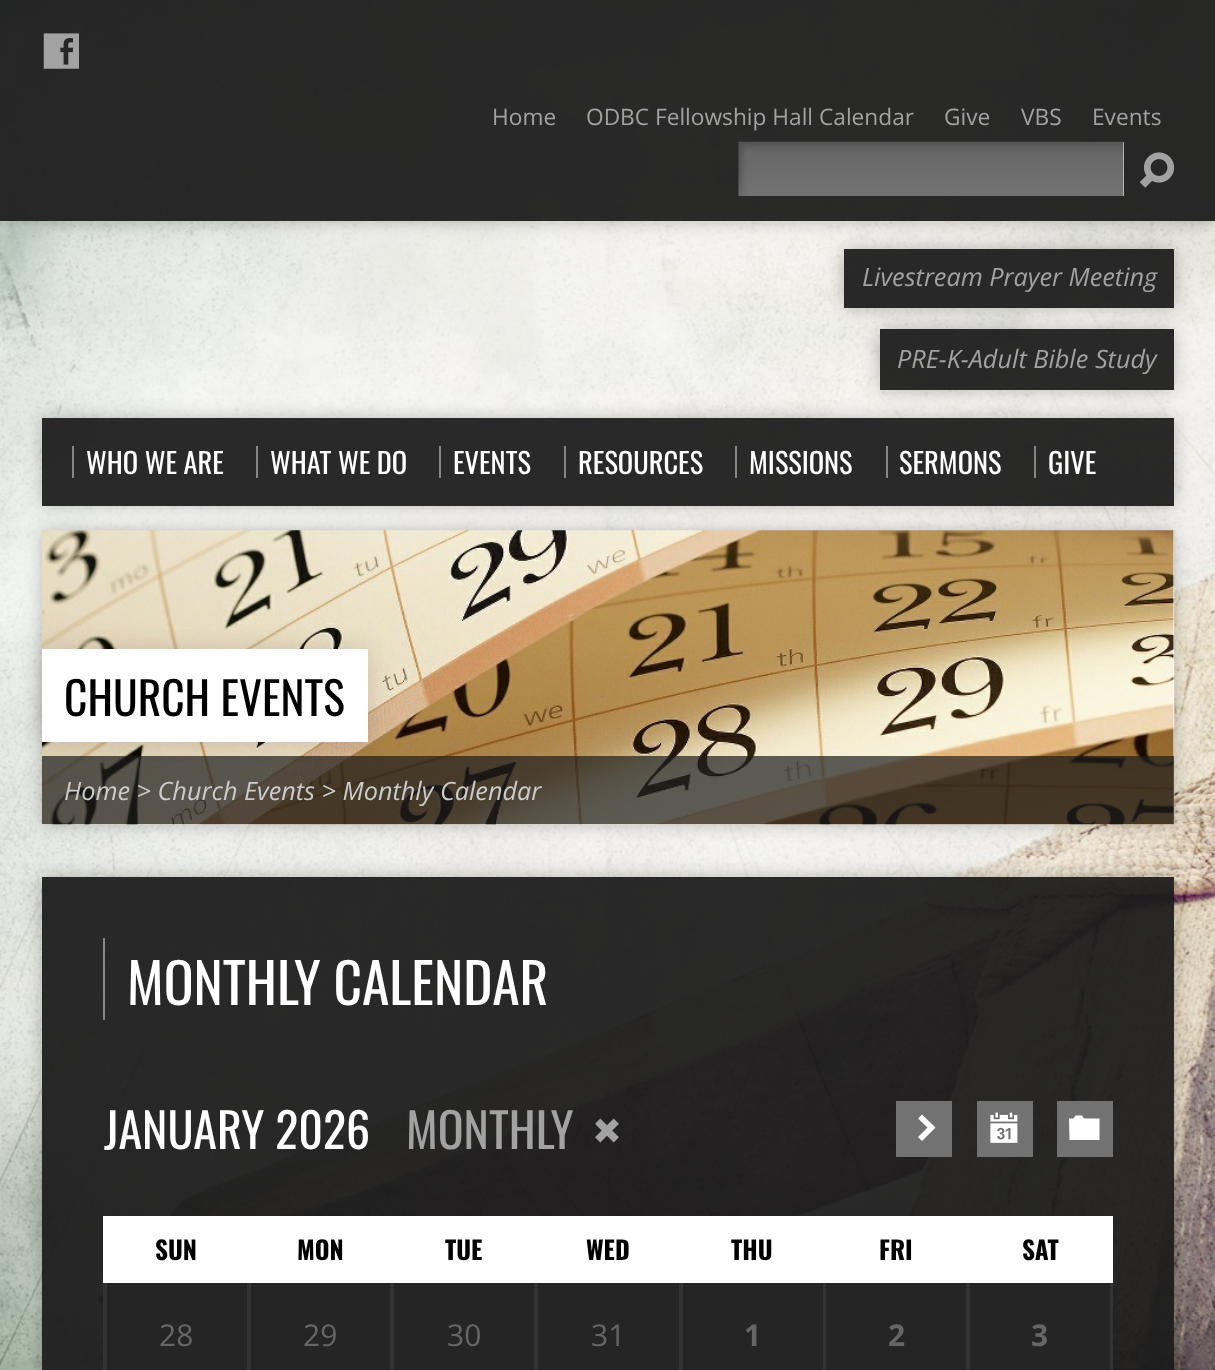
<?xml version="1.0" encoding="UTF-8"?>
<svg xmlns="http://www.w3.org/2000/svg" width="1215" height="1370">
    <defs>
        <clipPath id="clip1"><path d="M 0 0 H 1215 V 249 H 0 Z M 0 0 H 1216 V 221 H 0 Z" clip-rule="evenodd"/></clipPath>
        <filter id="blur1" x="-50%" y="-200%" width="200%" height="500%"><feGaussianBlur stdDeviation="9"/></filter>
        <clipPath id="clip2"><path d="M 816 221 H 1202 V 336 H 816 Z M 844 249 H 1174 V 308 H 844 Z" clip-rule="evenodd"/></clipPath>
        <clipPath id="clip3"><path d="M 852 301 H 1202 V 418 H 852 Z M 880 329 H 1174 V 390 H 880 Z" clip-rule="evenodd"/></clipPath>
        <clipPath id="clip4"><path d="M 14 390 H 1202 V 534 H 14 Z M 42 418 H 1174 V 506 H 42 Z" clip-rule="evenodd"/></clipPath>
        <filter id="blur2" x="-50%" y="-200%" width="200%" height="500%"><feGaussianBlur stdDeviation="12"/></filter>
        <clipPath id="clip5"><path d="M 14 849 H 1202 V 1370 H 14 Z M 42 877 H 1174 V 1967 H 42 Z" clip-rule="evenodd"/></clipPath>
    </defs>
    <rect width="100%" height="100%" fill="#FFFFFF"/>
    <image x="0" y="0" width="1215" height="1370" href="img_01.png"/>
    <g clip-path="url(#clip1)">
        <rect x="0" y="0" width="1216" height="221" fill="#000000" fill-opacity="0.25" filter="url(#blur1)"/>
    </g>
    <rect x="0" y="0" width="1215" height="221" fill="#1C1C1C" fill-opacity="0.94"/>
    <image x="43" y="33" width="36" height="36" href="img_02.png"/>
    <text x="492" y="125" font-family="Open Sans" font-size="22.7" fill="#A2A2A2">Home</text>
    <text x="586" y="125" font-family="Open Sans" font-size="22.7" fill="#A2A2A2">ODBC Fellowship Hall Calendar</text>
    <text x="944" y="125" font-family="Open Sans" font-size="22.7" fill="#A2A2A2">Give</text>
    <text x="1021" y="125" font-family="Open Sans" font-size="22.7" fill="#A2A2A2">VBS</text>
    <text x="1092" y="125" font-family="Open Sans" font-size="22.7" fill="#A2A2A2">Events</text>
    <rect x="1123" y="142" width="1" height="54" fill="#FFFFFF"/>
    <image x="738" y="141" width="386" height="55" href="img_03.png"/>
    <image x="1139" y="152" width="36" height="36" href="img_04.png"/>
    <g clip-path="url(#clip2)">
        <rect x="844" y="249" width="330" height="59" fill="#000000" fill-opacity="0.25" filter="url(#blur1)"/>
    </g>
    <rect x="844" y="249" width="330" height="59" fill="#1C1C1C" fill-opacity="0.94"/>
    <text x="862" y="286" font-family="Open Sans" font-size="25.25" font-style="italic" fill="#A2A2A2">Livestream Prayer Meeting</text>
    <g clip-path="url(#clip3)">
        <rect x="880" y="329" width="294" height="61" fill="#000000" fill-opacity="0.25" filter="url(#blur1)"/>
    </g>
    <rect x="880" y="329" width="294" height="61" fill="#1C1C1C" fill-opacity="0.94"/>
    <text x="897" y="368" font-family="Open Sans" font-size="25.25" font-style="italic" fill="#A2A2A2">PRE-K-Adult Bible Study</text>
    <g clip-path="url(#clip4)">
        <rect x="42" y="418" width="1132" height="88" fill="#000000" fill-opacity="0.25" filter="url(#blur1)"/>
    </g>
    <rect x="42" y="418" width="1132" height="88" fill="#1C1C1C" fill-opacity="0.94"/>
    <rect x="72" y="446" width="2" height="32" fill="#868686"/>
    <text x="86" y="474" font-family="Oswald" font-size="28.5" fill="#FFFFFF">WHO WE ARE</text>
    <rect x="256" y="446" width="2" height="32" fill="#868686"/>
    <text x="270" y="474" font-family="Oswald" font-size="28.5" fill="#FFFFFF">WHAT WE DO</text>
    <rect x="439" y="446" width="2" height="32" fill="#868686"/>
    <text x="453" y="474" font-family="Oswald" font-size="28.5" fill="#FFFFFF">EVENTS</text>
    <rect x="564" y="446" width="2" height="32" fill="#868686"/>
    <text x="578" y="474" font-family="Oswald" font-size="28.5" fill="#FFFFFF">RESOURCES</text>
    <rect x="735" y="446" width="2" height="32" fill="#868686"/>
    <text x="749" y="474" font-family="Oswald" font-size="28.5" fill="#FFFFFF">MISSIONS</text>
    <rect x="886" y="446" width="2" height="32" fill="#868686"/>
    <text x="899" y="474" font-family="Oswald" font-size="28.5" fill="#FFFFFF">SERMONS</text>
    <rect x="1034" y="446" width="2" height="32" fill="#868686"/>
    <text x="1048" y="474" font-family="Oswald" font-size="28.5" fill="#FFFFFF">GIVE</text>
    <rect x="42" y="530" width="1132" height="294" fill="#000000" fill-opacity="0.25" filter="url(#blur1)"/>
    <image x="42" y="530" width="1133" height="295" href="img_05.png"/>
    <rect x="42" y="756" width="1132" height="68" fill="#1C1C1C" fill-opacity="0.7"/>
    <rect x="42" y="649" width="326" height="93" fill="#000000" fill-opacity="0.15" filter="url(#blur2)"/>
    <rect x="42" y="649" width="326" height="93" fill="#FFFFFF"/>
    <text x="64" y="716" font-family="Oswald" font-size="45.5" fill="#000000">CHURCH EVENTS</text>
    <text x="64" y="800" font-family="Open Sans" font-size="25.25" font-style="italic" fill="#CCCCCC">Home &gt; Church Events &gt; Monthly Calendar</text>
    <g clip-path="url(#clip5)">
        <rect x="42" y="877" width="1132" height="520" fill="#000000" fill-opacity="0.25" filter="url(#blur1)"/>
    </g>
    <rect x="42" y="877" width="1132" height="493" fill="#1C1C1C" fill-opacity="0.94"/>
    <rect x="103" y="938" width="2" height="82" fill="#868686"/>
    <text x="127" y="1005" font-family="Oswald" font-size="55.5" fill="#FFFFFF">MONTHLY CALENDAR</text>
    <text x="104" y="1149" font-family="Oswald" font-size="48" fill="#FFFFFF">JANUARY 2026</text>
    <text x="406" y="1149" font-family="Oswald" font-size="48" fill="#A2A2A2">MONTHLY</text>
    <image x="595" y="1118" width="24" height="25" href="img_06.png"/>
    <rect x="896" y="1101" width="56" height="56" fill="#727272"/>
    <path d="M 935.5 1127.5 L 922 1114.5 L 918 1118.5 L 927.5 1127.5 L 918 1137 L 922 1141 Z" fill="#FFFFFF"/>
    <rect x="977" y="1101" width="56" height="56" fill="#727272"/>
    <image x="990" y="1112" width="28" height="31" href="img_07.png"/>
    <rect x="1057" y="1101" width="56" height="56" fill="#727272"/>
    <path d="M 1075.5 1115.5 L 1073.5 1118.5 H 1069 L 1069.5 1140 H 1099.5 V 1118.5 H 1084 L 1082 1115.5 Z" fill="#FFFFFF"/>
    <rect x="103" y="1216" width="1010" height="67" fill="#FFFFFF"/>
    <text x="155" y="1260" font-family="Oswald" font-size="25.25" font-weight="700" fill="#000000">SUN</text>
    <text x="297" y="1260" font-family="Oswald" font-size="25.25" font-weight="700" fill="#000000">MON</text>
    <text x="445" y="1260" font-family="Oswald" font-size="25.25" font-weight="700" fill="#000000">TUE</text>
    <text x="586" y="1260" font-family="Oswald" font-size="25.25" font-weight="700" fill="#000000">WED</text>
    <text x="731" y="1260" font-family="Oswald" font-size="25.25" font-weight="700" fill="#000000">THU</text>
    <text x="879" y="1260" font-family="Oswald" font-size="25.25" font-weight="700" fill="#000000">FRI</text>
    <text x="1022" y="1260" font-family="Oswald" font-size="25.25" font-weight="700" fill="#000000">SAT</text>
    <rect x="107" y="1283" width="140" height="87" fill="#252525"/>
    <rect x="247" y="1283" width="4" height="87" fill="#333333"/>
    <rect x="103" y="1283" width="4" height="87" fill="#333333"/>
    <text x="159" y="1346" font-family="Open Sans" font-size="30" fill="#666666">28</text>
    <rect x="251" y="1283" width="139" height="87" fill="#252525"/>
    <rect x="390" y="1283" width="4" height="87" fill="#333333"/>
    <text x="303" y="1346" font-family="Open Sans" font-size="30" fill="#666666">29</text>
    <rect x="394" y="1283" width="140" height="87" fill="#252525"/>
    <rect x="534" y="1283" width="4" height="87" fill="#333333"/>
    <text x="447" y="1346" font-family="Open Sans" font-size="30" fill="#666666">30</text>
    <rect x="538" y="1283" width="141" height="87" fill="#252525"/>
    <rect x="679" y="1283" width="4" height="87" fill="#333333"/>
    <text x="591" y="1346" font-family="Open Sans" font-size="30" fill="#666666">31</text>
    <rect x="683" y="1283" width="140" height="87" fill="#252525"/>
    <rect x="823" y="1283" width="3" height="87" fill="#333333"/>
    <text x="744" y="1346" font-family="Open Sans" font-size="30" font-weight="700" fill="#666666">1</text>
    <rect x="826" y="1283" width="140" height="87" fill="#252525"/>
    <rect x="966" y="1283" width="4" height="87" fill="#333333"/>
    <text x="888" y="1346" font-family="Open Sans" font-size="30" font-weight="700" fill="#666666">2</text>
    <rect x="970" y="1283" width="140" height="87" fill="#252525"/>
    <rect x="1110" y="1283" width="3" height="87" fill="#333333"/>
    <text x="1031" y="1346" font-family="Open Sans" font-size="30" font-weight="700" fill="#666666">3</text>
</svg>
